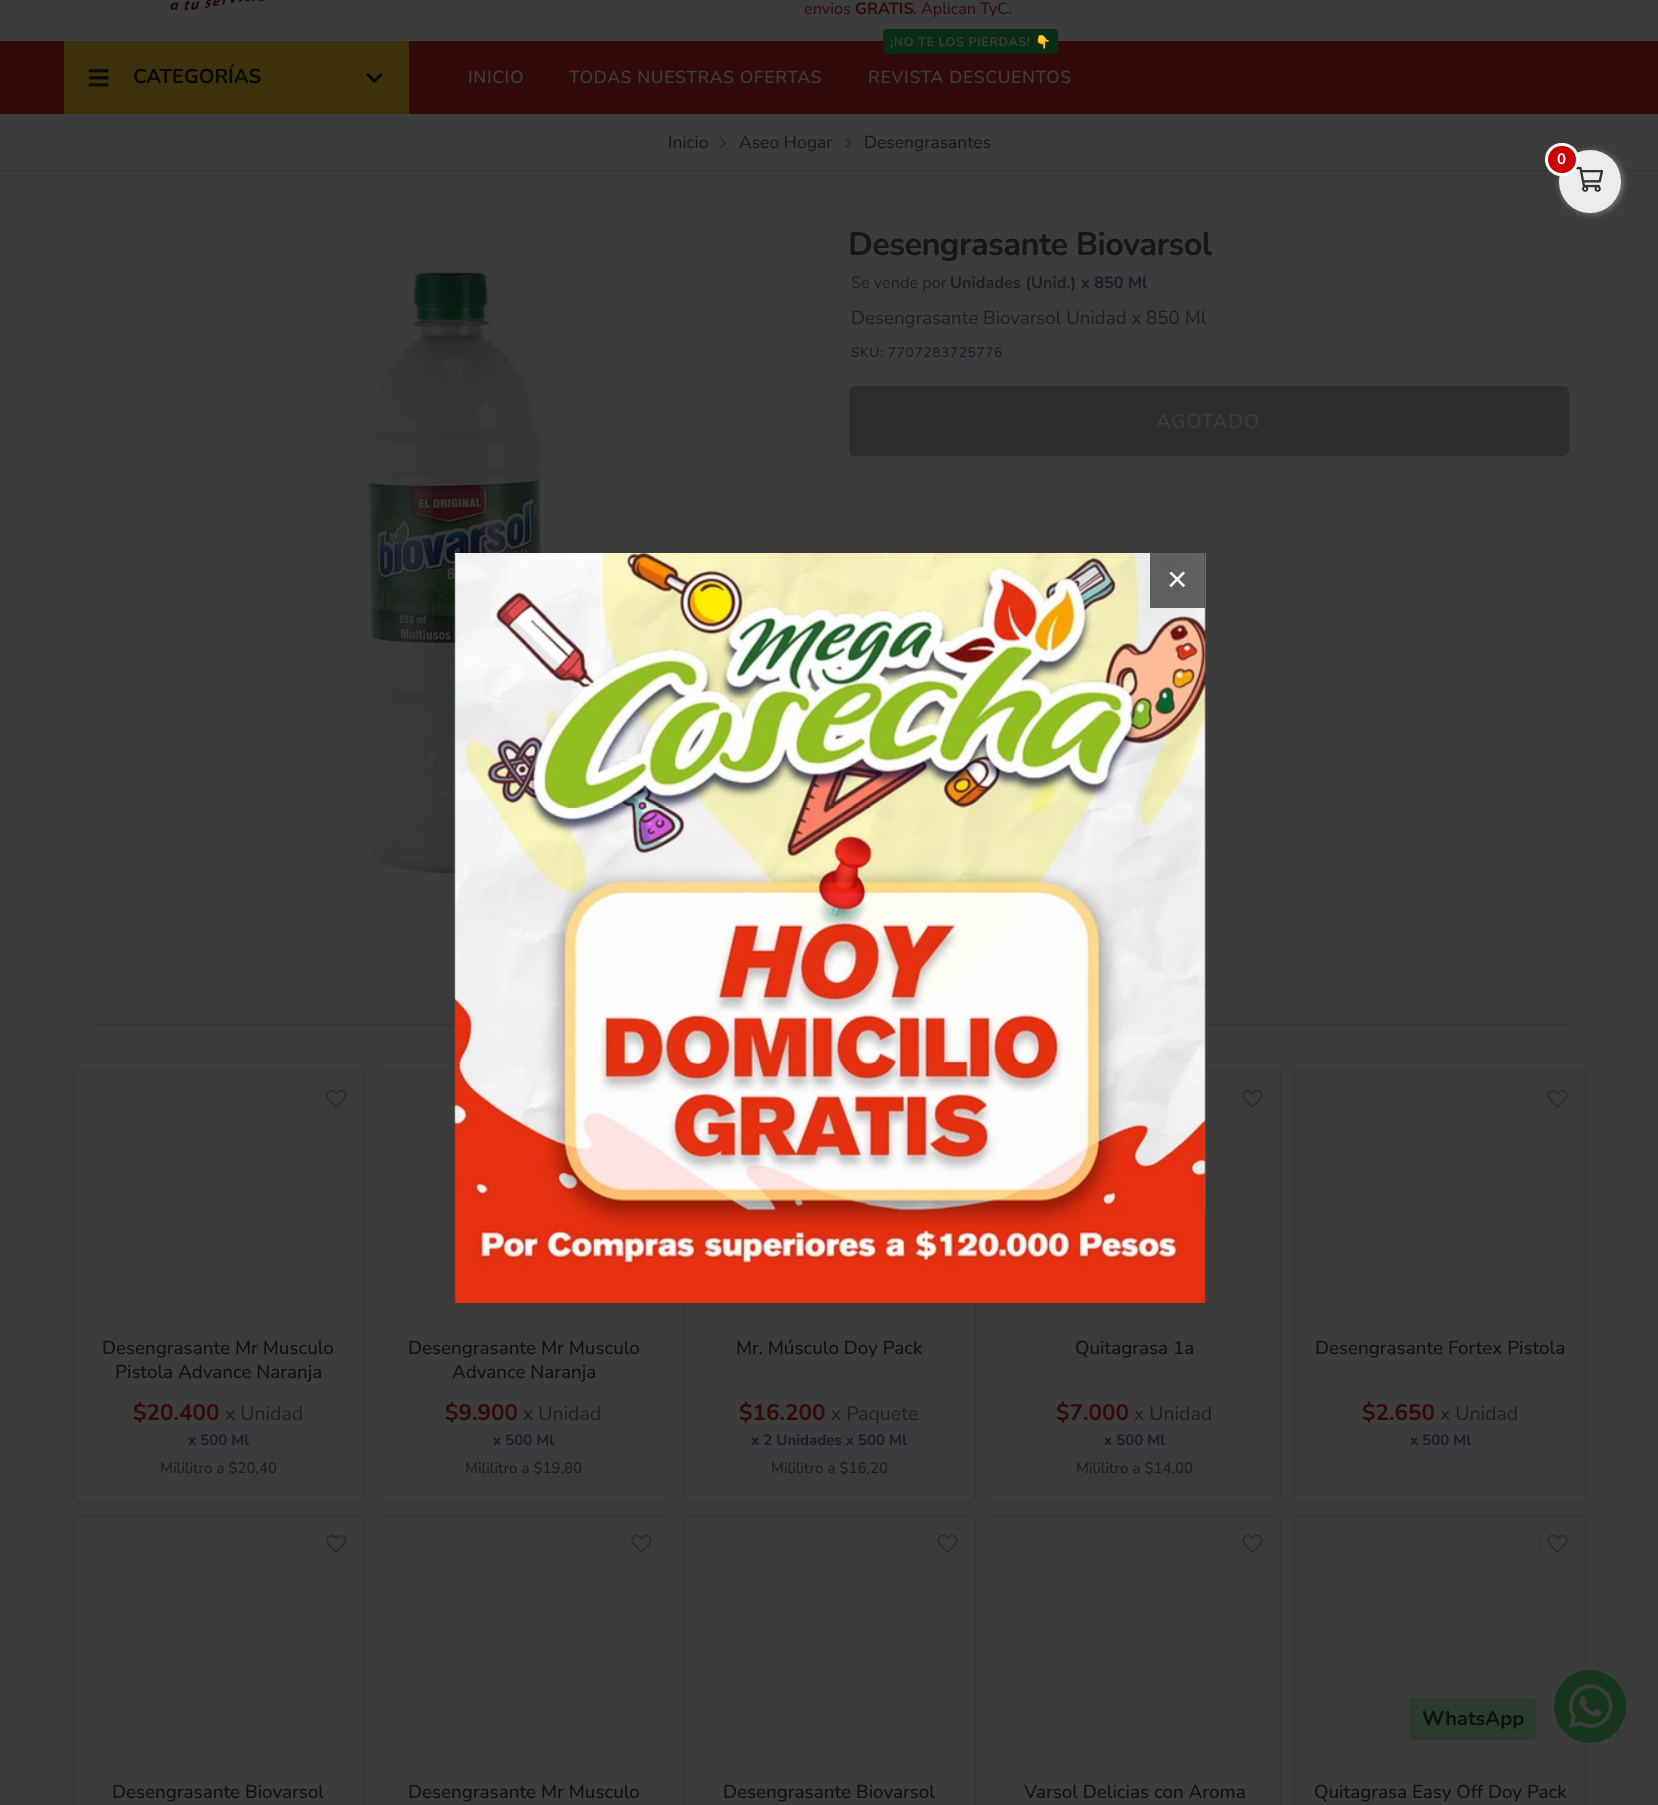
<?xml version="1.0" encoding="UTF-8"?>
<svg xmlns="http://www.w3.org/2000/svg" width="1658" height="1805">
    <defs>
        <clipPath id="clip1"><path d="M 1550 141 H 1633 V 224 H 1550 Z M 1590 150 C 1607 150 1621 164 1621 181 V 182 C 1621 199 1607 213 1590 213 C 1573 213 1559 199 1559 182 V 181 C 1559 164 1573 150 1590 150 Z" clip-rule="evenodd"/></clipPath>
        <filter id="blur1" x="-50%" y="-200%" width="200%" height="500%"><feGaussianBlur stdDeviation="3"/></filter>
    </defs>
    <rect width="100%" height="100%" fill="#3C3C3C"/>
    <image x="170" y="0" width="95" height="10" href="img_01.png"/>
    <text x="804" y="14" font-family="Nunito" font-size="16.25" fill="#320909">envios</text>
    <text x="855" y="14" font-family="Nunito" font-size="16.25" font-weight="700" fill="#320909">GRATIS</text>
    <text x="913" y="14" font-family="Nunito" font-size="16.25" fill="#320909">. Aplican TyC.</text>
    <rect x="0" y="41" width="1658" height="73" fill="#320A09"/>
    <image x="0" y="90" width="1658" height="24" href="img_02.png"/>
    <rect x="64" y="41" width="345" height="73" fill="#3C310A"/>
    <image x="88" y="69" width="21" height="18" href="img_03.png"/>
    <text x="133" y="83" font-family="Nunito" font-size="20" font-weight="700" fill="#090909">CATEGORÍAS</text>
    <image x="366" y="73" width="17" height="10" href="img_04.png"/>
    <text x="468" y="83" font-family="Nunito" font-size="17.5" font-weight="600" letter-spacing="0.6" fill="#3C3C3C">INICIO</text>
    <text x="569" y="83" font-family="Nunito" font-size="17.5" font-weight="600" letter-spacing="0.6" fill="#3C3C3C">TODAS NUESTRAS OFERTAS</text>
    <rect x="883" y="29" width="175" height="25" rx="4" fill="#092C15"/>
    <text x="890" y="46" font-family="Nunito" font-size="12.5" font-weight="700" letter-spacing="0.6" fill="#3C3C3C">¡NO TE LOS PIERDAS!</text>
    <text x="1035" y="46" font-family="Noto Color Emoji" font-size="12.5" font-weight="700" letter-spacing="0.6" fill="#3C3C3C">👇</text>
    <text x="868" y="83" font-family="Nunito" font-size="17.5" font-weight="600" letter-spacing="0.6" fill="#3C3C3C">REVISTA DESCUENTOS</text>
    <rect x="0" y="170" width="1658" height="1" fill="#353535"/>
    <text x="668" y="148" font-family="Nunito" font-size="17.5" fill="#161616">Inicio</text>
    <image x="720" y="137" width="7" height="12" href="img_05.png"/>
    <text x="739" y="148" font-family="Nunito" font-size="17.5" fill="#161616">Aseo Hogar</text>
    <image x="845" y="137" width="7" height="12" href="img_05.png"/>
    <text x="864" y="148" font-family="Nunito" font-size="17.5" fill="#161616">Desengrasantes</text>
    <g clip-path="url(#clip1)">
        <rect x="1560" y="151" width="63" height="63" rx="31.5" fill="#808080" filter="url(#blur1)"/>
    </g>
    <rect x="1559" y="150" width="62" height="63" rx="31" fill="#FFFFFF" fill-opacity="0.9"/>
    <image x="1575" y="166" width="29" height="26" href="img_06.png"/>
    <rect x="1546.5" y="144.5" width="31" height="30" rx="15" fill="#CC0000" stroke="#FFFFFF" stroke-width="3"/>
    <text x="1557" y="164" font-family="Nunito" font-size="15" font-weight="700" fill="#FFFFFF">0</text>
    <image x="365" y="271" width="185" height="605" href="img_07.png"/>
    <text x="848" y="255" font-family="Nunito" font-size="32.5" font-weight="700" letter-spacing="-0.6" fill="#161616">Desengrasante Biovarsol</text>
    <text x="851" y="288" font-family="Nunito" font-size="16.25" fill="#1D1D1D">Se vende por</text>
    <text x="950" y="288" font-family="Nunito" font-size="16.25" font-weight="700" fill="#1D1D1D">Unidades (Unid.)</text>
    <text x="1081" y="288" font-family="Nunito" font-size="16.25" font-weight="700" fill="#131D27">x 850 Ml</text>
    <text x="851" y="324" font-family="Nunito" font-size="18.75" fill="#1D1D1D">Desengrasante Biovarsol Unidad x 850 Ml</text>
    <text x="851" y="357" font-family="Nunito" font-size="13.75" font-weight="500" letter-spacing="0.6" fill="#131D27">SKU: 7707283725776</text>
    <rect x="849" y="386" width="720" height="70" rx="6" fill="#2C2C2C"/>
    <text x="1156" y="428" font-family="Nunito" font-size="20" font-weight="600" letter-spacing="0.6" fill="#3C3C3C">AGOTADO</text>
    <rect x="91" y="1024" width="365" height="1" fill="#353535"/>
    <rect x="1204" y="1024" width="365" height="1" fill="#353535"/>
    <rect x="73.5" y="1070.5" width="291" height="432" rx="5.5" fill="none" stroke="#353535"/>
    <rect x="318.5" y="1080.5" width="36" height="37" rx="18" fill="none" stroke="#383838"/>
    <image x="326" y="1090" width="21" height="18" href="img_08.png"/>
    <text x="102" y="1354" font-family="Nunito" font-size="18.75" font-weight="500" fill="#101010">Desengrasante Mr Musculo</text>
    <text x="115" y="1378" font-family="Nunito" font-size="18.75" font-weight="500" fill="#101010">Pistola Advance Naranja</text>
    <text x="133" y="1420" font-family="Nunito" font-size="22.5" font-weight="700" fill="#320909">$20.400</text>
    <text x="225" y="1420" font-family="Nunito" font-size="19.5" fill="#1D1D1D">x Unidad</text>
    <text x="188" y="1445" font-family="Nunito" font-size="15" font-weight="700" fill="#131D27">x 500 Ml</text>
    <text x="160" y="1473" font-family="Nunito" font-size="15" font-weight="600" fill="#1D1D1D">Mililitro a $20,40</text>
    <rect x="378.5" y="1070.5" width="291" height="432" rx="5.5" fill="none" stroke="#353535"/>
    <text x="408" y="1354" font-family="Nunito" font-size="18.75" font-weight="500" fill="#101010">Desengrasante Mr Musculo</text>
    <text x="452" y="1378" font-family="Nunito" font-size="18.75" font-weight="500" fill="#101010">Advance Naranja</text>
    <text x="445" y="1420" font-family="Nunito" font-size="22.5" font-weight="700" fill="#320909">$9.900</text>
    <text x="523" y="1420" font-family="Nunito" font-size="19.5" fill="#1D1D1D">x Unidad</text>
    <text x="493" y="1445" font-family="Nunito" font-size="15" font-weight="700" fill="#131D27">x 500 Ml</text>
    <text x="465" y="1473" font-family="Nunito" font-size="15" font-weight="600" fill="#1D1D1D">Mililitro a $19,80</text>
    <rect x="683.5" y="1070.5" width="292" height="432" rx="5.5" fill="none" stroke="#353535"/>
    <text x="736" y="1354" font-family="Nunito" font-size="18.75" font-weight="500" fill="#101010">Mr. Músculo Doy Pack</text>
    <text x="739" y="1420" font-family="Nunito" font-size="22.5" font-weight="700" fill="#320909">$16.200</text>
    <text x="831" y="1420" font-family="Nunito" font-size="19.5" fill="#1D1D1D">x Paquete</text>
    <text x="751" y="1445" font-family="Nunito" font-size="15" font-weight="700" fill="#131D27">x 2 Unidades x 500 Ml</text>
    <text x="771" y="1473" font-family="Nunito" font-size="15" font-weight="600" fill="#1D1D1D">Mililitro a $16,20</text>
    <rect x="989.5" y="1070.5" width="291" height="432" rx="5.5" fill="none" stroke="#353535"/>
    <rect x="1234.5" y="1080.5" width="36" height="37" rx="18" fill="none" stroke="#383838"/>
    <image x="1242" y="1090" width="21" height="18" href="img_09.png"/>
    <text x="1075" y="1354" font-family="Nunito" font-size="18.75" font-weight="500" fill="#101010">Quitagrasa 1a</text>
    <text x="1056" y="1420" font-family="Nunito" font-size="22.5" font-weight="700" fill="#320909">$7.000</text>
    <text x="1134" y="1420" font-family="Nunito" font-size="19.5" fill="#1D1D1D">x Unidad</text>
    <text x="1104" y="1445" font-family="Nunito" font-size="15" font-weight="700" fill="#131D27">x 500 Ml</text>
    <text x="1076" y="1473" font-family="Nunito" font-size="15" font-weight="600" fill="#1D1D1D">Mililitro a $14,00</text>
    <rect x="1294.5" y="1070.5" width="291" height="432" rx="5.5" fill="none" stroke="#353535"/>
    <rect x="1539.5" y="1080.5" width="36" height="37" rx="18" fill="none" stroke="#383838"/>
    <image x="1547" y="1090" width="21" height="18" href="img_09.png"/>
    <text x="1315" y="1354" font-family="Nunito" font-size="18.75" font-weight="500" fill="#101010">Desengrasante Fortex Pistola</text>
    <text x="1362" y="1420" font-family="Nunito" font-size="22.5" font-weight="700" fill="#320909">$2.650</text>
    <text x="1440" y="1420" font-family="Nunito" font-size="19.5" fill="#1D1D1D">x Unidad</text>
    <text x="1410" y="1445" font-family="Nunito" font-size="15" font-weight="700" fill="#131D27">x 500 Ml</text>
    <rect x="73.5" y="1515.5" width="291" height="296" rx="5.5" fill="none" stroke="#353535"/>
    <rect x="318.5" y="1525.5" width="36" height="37" rx="18" fill="none" stroke="#383838"/>
    <image x="326" y="1535" width="21" height="18" href="img_08.png"/>
    <text x="112" y="1798" font-family="Nunito" font-size="18.75" font-weight="500" fill="#101010">Desengrasante Biovarsol</text>
    <rect x="378.5" y="1515.5" width="291" height="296" rx="5.5" fill="none" stroke="#353535"/>
    <rect x="623.5" y="1525.5" width="36" height="37" rx="18" fill="none" stroke="#383838"/>
    <image x="631" y="1535" width="21" height="18" href="img_08.png"/>
    <text x="408" y="1798" font-family="Nunito" font-size="18.75" font-weight="500" fill="#101010">Desengrasante Mr Musculo</text>
    <rect x="683.5" y="1515.5" width="292" height="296" rx="5.5" fill="none" stroke="#353535"/>
    <rect x="929.5" y="1525.5" width="36" height="37" rx="18" fill="none" stroke="#383838"/>
    <image x="937" y="1535" width="21" height="18" href="img_09.png"/>
    <text x="723" y="1798" font-family="Nunito" font-size="18.75" font-weight="500" fill="#101010">Desengrasante Biovarsol</text>
    <rect x="989.5" y="1515.5" width="291" height="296" rx="5.5" fill="none" stroke="#353535"/>
    <rect x="1234.5" y="1525.5" width="36" height="37" rx="18" fill="none" stroke="#383838"/>
    <image x="1242" y="1535" width="21" height="18" href="img_09.png"/>
    <text x="1024" y="1798" font-family="Nunito" font-size="18.75" font-weight="500" fill="#101010">Varsol Delicias con Aroma</text>
    <rect x="1294.5" y="1515.5" width="291" height="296" rx="5.5" fill="none" stroke="#353535"/>
    <rect x="1539.5" y="1525.5" width="36" height="37" rx="18" fill="none" stroke="#383838"/>
    <image x="1547" y="1535" width="21" height="18" href="img_09.png"/>
    <text x="1314" y="1798" font-family="Nunito" font-size="18.75" font-weight="500" fill="#101010">Quitagrasa Easy Off Doy Pack</text>
    <rect x="1409" y="1698" width="127" height="42" rx="5" fill="#2A3A2D"/>
    <text x="1422" y="1725" font-family="Nunito" font-size="20" font-weight="700" fill="#091309">WhatsApp</text>
    <rect x="1554" y="1670" width="72" height="73" rx="36" fill="#15361B"/>
    <image x="1568" y="1684" width="45" height="44" href="img_10.png"/>
    <image x="454" y="553" width="752" height="750" href="img_11.png"/>
    <rect x="1150" y="553" width="55" height="55" fill="#000000" fill-opacity="0.6"/>
    <text x="1167" y="591" font-family="Liberation Sans" font-size="35" fill="#FFFFFF">×</text>
</svg>
